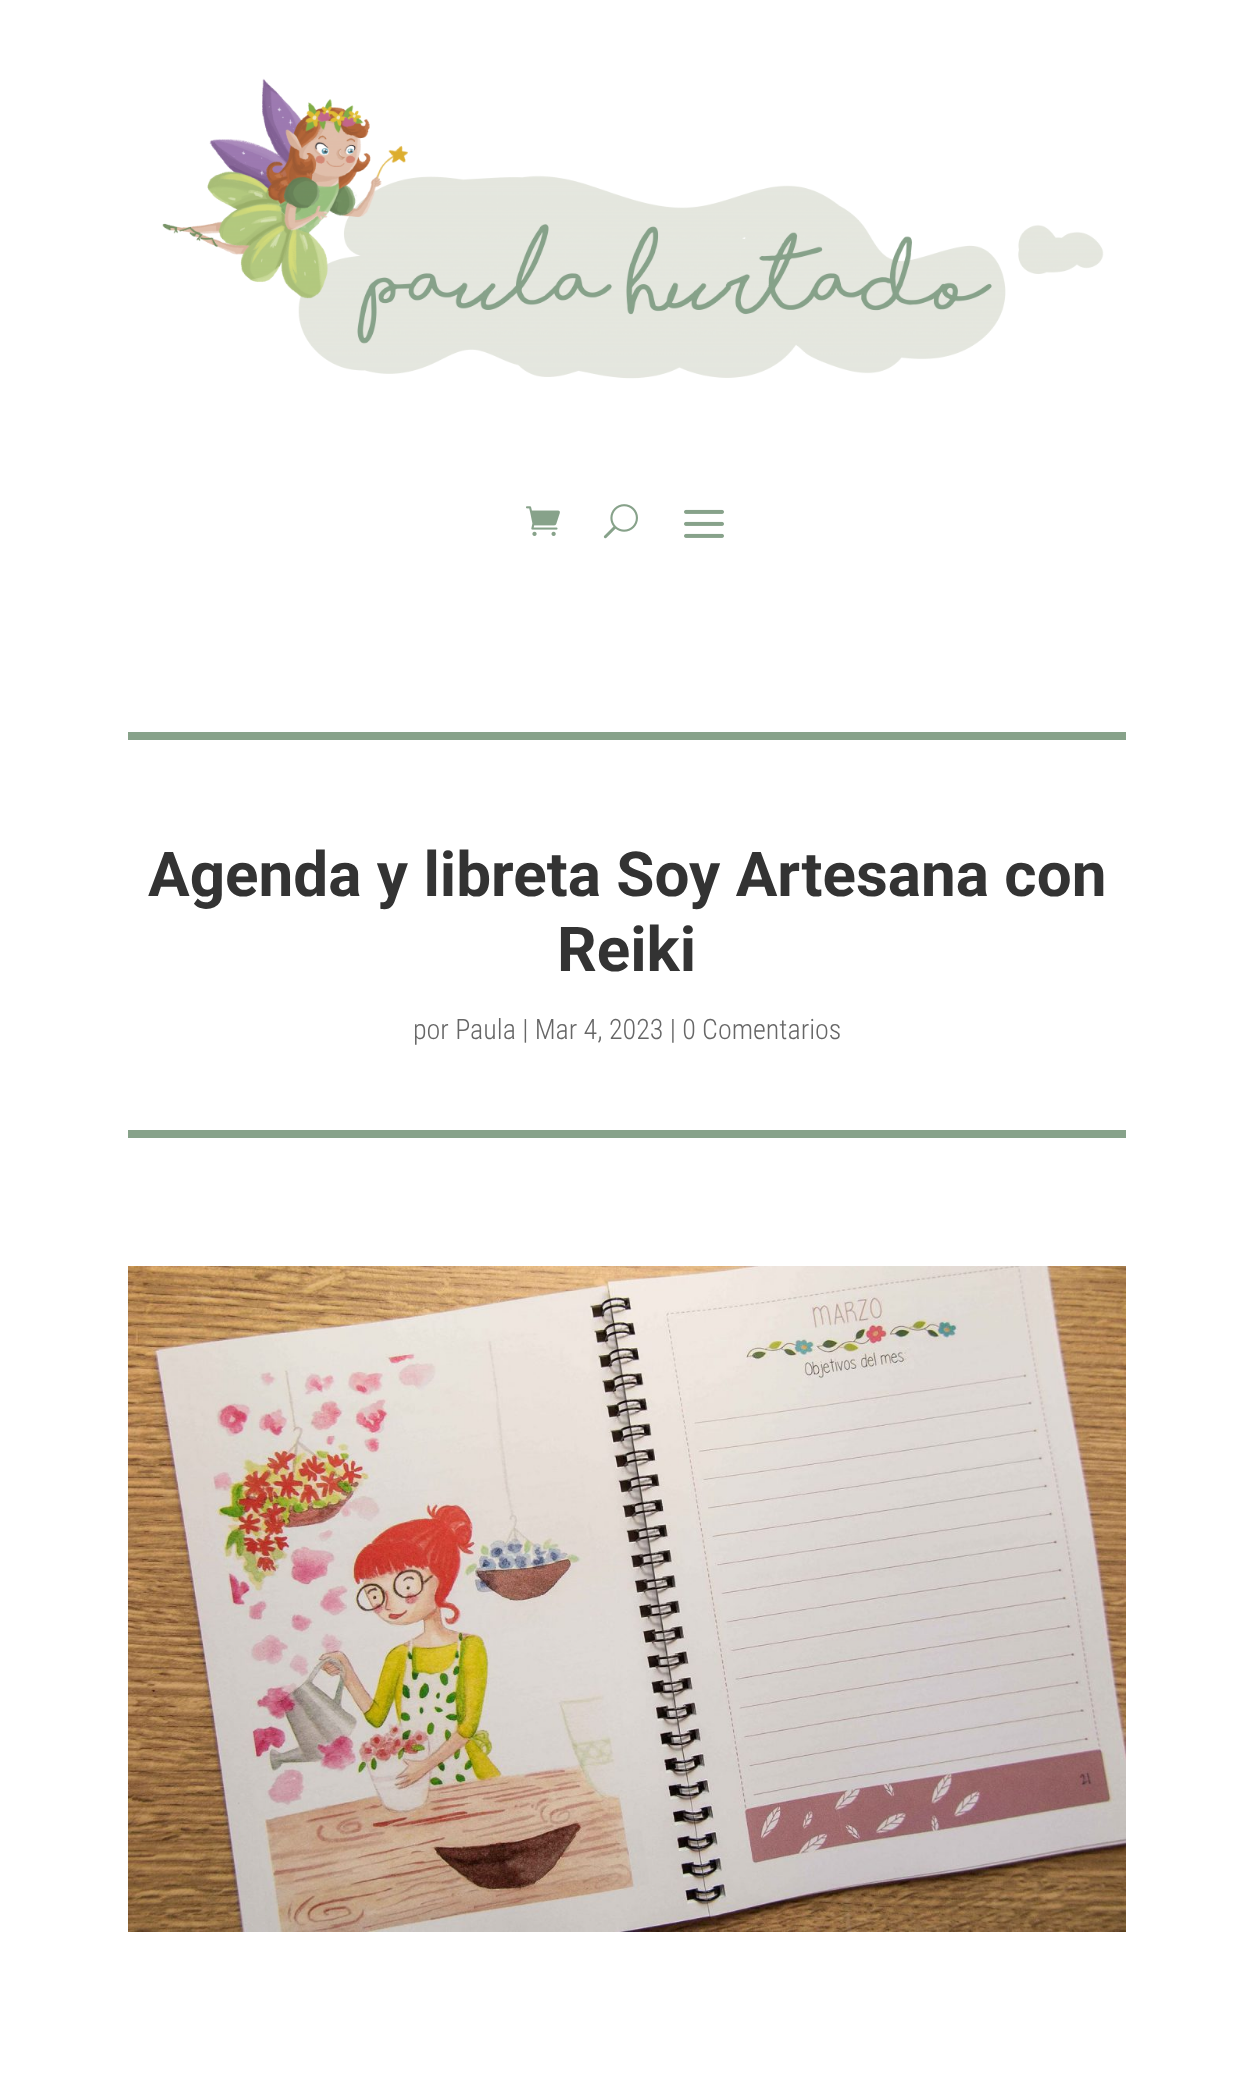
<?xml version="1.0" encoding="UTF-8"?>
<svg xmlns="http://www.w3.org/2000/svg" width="1250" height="2088">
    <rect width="100%" height="100%" fill="#FFFFFF"/>
    <image x="162" y="78" width="942" height="301" href="img_01.png"/>
    <image x="526" y="506" width="34" height="30" href="img_02.png"/>
    <image x="603" y="504" width="35" height="35" href="img_03.png"/>
    <image x="684" y="509" width="40" height="29" href="img_04.png"/>
    <rect x="128" y="732" width="998" height="8" fill="#87A28A"/>
    <text x="148" y="896" font-family="Roboto" font-size="62" font-weight="700" fill="#333333">Agenda y libreta Soy Artesana con</text>
    <text x="557" y="971" font-family="Roboto" font-size="62" font-weight="700" fill="#333333">Reiki</text>
    <text x="413" y="1039" font-family="Roboto Condensed" font-size="28" font-weight="300" fill="#666666">por Paula | Mar 4, 2023 | 0 Comentarios</text>
    <rect x="128" y="1130" width="998" height="8" fill="#87A28A"/>
    <image x="128" y="1266" width="998" height="666" href="img_05.png"/>
</svg>
